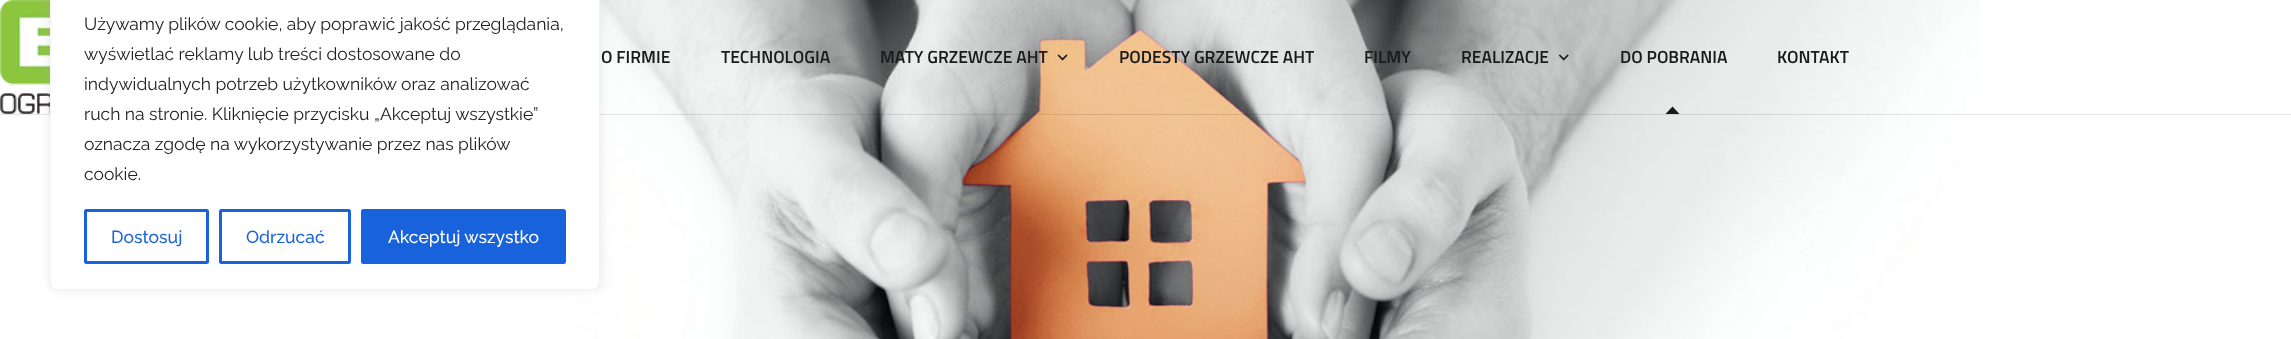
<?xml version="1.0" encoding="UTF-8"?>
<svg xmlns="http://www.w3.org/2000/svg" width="2291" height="339">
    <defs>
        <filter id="blur1" x="-50%" y="-200%" width="200%" height="500%"><feGaussianBlur stdDeviation="6"/></filter>
        <clipPath id="clip1"><rect x="1620" y="0" width="108" height="114"/></clipPath>
    </defs>
    <rect width="100%" height="100%" fill="#FFFFFF"/>
    <image x="574" y="0" width="1406" height="339" href="img_01.png"/>
    <rect x="0" y="114" width="2291" height="1" fill="#000000" fill-opacity="0.1"/>
    <image x="0" y="0" width="50" height="114" href="img_02.png"/>
    <rect x="50" y="-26" width="550" height="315" rx="8" fill="#ACABAB" fill-opacity="0.3" filter="url(#blur1)"/>
    <rect x="50.5" y="-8.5" width="549" height="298" rx="7.5" fill="#FFFFFF" stroke="#F4F4F4"/>
    <text font-family="Raleway" font-size="17.5" fill="#212121">
        <tspan x="84" y="30">Używamy plików cookie, aby poprawić jakość przeglądania,</tspan>
        <tspan x="84" y="60">wyświetlać reklamy lub treści dostosowane do</tspan>
        <tspan x="84" y="90">indywidualnych potrzeb użytkowników oraz analizować</tspan>
        <tspan x="84" y="120">ruch na stronie. Kliknięcie przycisku „Akceptuj wszystkie”</tspan>
        <tspan x="84" y="150">oznacza zgodę na wykorzystywanie przez nas plików</tspan>
        <tspan x="84" y="180">cookie.</tspan>
    </text>
    <rect x="85.5" y="210.5" width="122" height="52" rx="1" fill="none" stroke="#1863DC" stroke-width="3"/>
    <text x="111" y="243" font-family="Raleway" font-size="17.5" font-weight="500" fill="#1863DC">Dostosuj</text>
    <rect x="220.5" y="210.5" width="129" height="52" rx="1" fill="none" stroke="#1863DC" stroke-width="3"/>
    <text x="246" y="243" font-family="Raleway" font-size="17.5" font-weight="500" fill="#1863DC">Odrzucać</text>
    <rect x="362.5" y="210.5" width="202" height="52" rx="1" fill="#1863DC" stroke="#1863DC" stroke-width="3"/>
    <text x="388" y="243" font-family="Raleway" font-size="17.5" font-weight="500" fill="#FFFFFF">Akceptuj wszystko</text>
    <text x="601" y="63" font-family="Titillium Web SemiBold" font-size="17.5" font-weight="600" fill="#1A1A1A">O FIRMIE</text>
    <text x="721" y="63" font-family="Titillium Web SemiBold" font-size="17.5" font-weight="600" fill="#1A1A1A">TECHNOLOGIA</text>
    <text x="880" y="63" font-family="Titillium Web SemiBold" font-size="17.5" font-weight="600" fill="#1A1A1A">MATY GRZEWCZE AHT</text>
    <image x="1057" y="54" width="11" height="7" href="img_03.png"/>
    <text x="1119" y="63" font-family="Titillium Web SemiBold" font-size="17.5" font-weight="600" fill="#1A1A1A">PODESTY GRZEWCZE AHT</text>
    <text x="1364" y="63" font-family="Titillium Web SemiBold" font-size="17.5" font-weight="600" fill="#1A1A1A">FILMY</text>
    <text x="1461" y="63" font-family="Titillium Web SemiBold" font-size="17.5" font-weight="600" fill="#1A1A1A">REALIZACJE</text>
    <image x="1558" y="54" width="11" height="7" href="img_04.png"/>
    <text x="1620" y="63" font-family="Titillium Web SemiBold" font-size="17.5" font-weight="600" fill="#1A1A1A">DO POBRANIA</text>
    <g clip-path="url(#clip1)">
        <path d="M 1672.5 106.5 L 1679.5 114 L 1672.5 121 L 1665.5 114 Z" fill="#1A1A1A"/>
    </g>
    <text x="1777" y="63" font-family="Titillium Web SemiBold" font-size="17.5" font-weight="600" fill="#1A1A1A">KONTAKT</text>
</svg>
